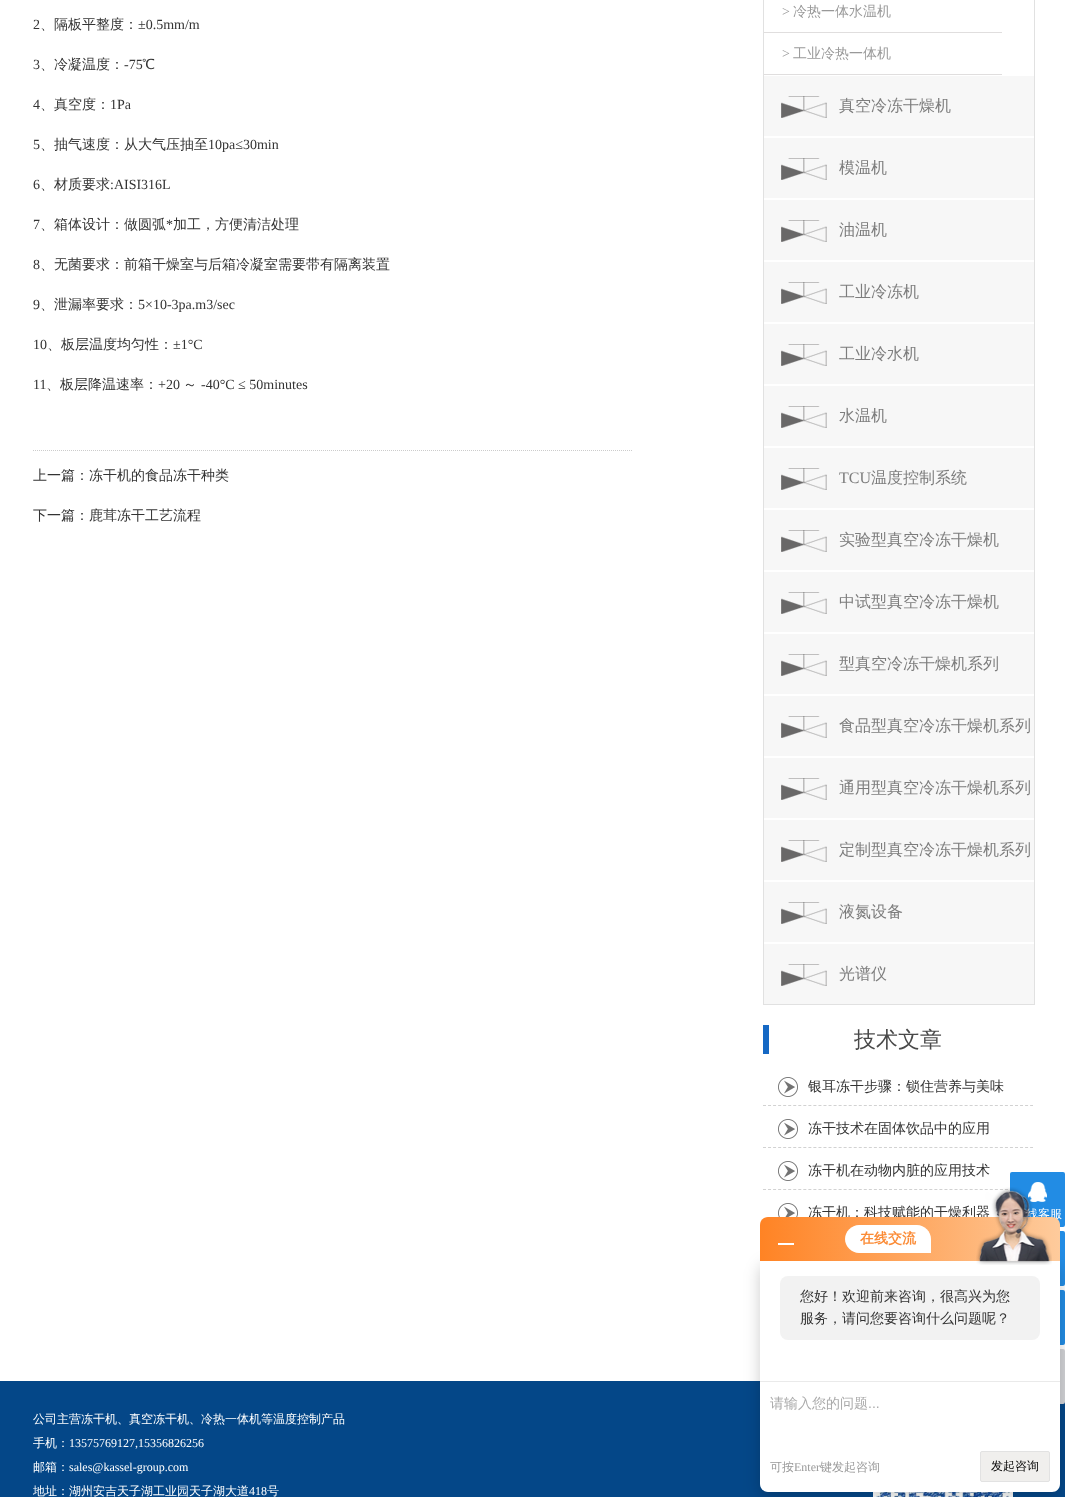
<?xml version="1.0" encoding="UTF-8"?>
<svg xmlns="http://www.w3.org/2000/svg" width="1065" height="1497">
    <defs>
        <filter id="blur1" x="-50%" y="-200%" width="200%" height="500%"><feGaussianBlur stdDeviation="8"/></filter>
        <linearGradient id="g1" gradientUnits="userSpaceOnUse" x1="760" y1="1239" x2="1060" y2="1239"><stop offset="0" stop-color="#FF8324"/><stop offset="1" stop-color="#FECB9C"/></linearGradient>
    </defs>
    <rect width="100%" height="100%" fill="#FFFFFF"/>
    <text x="33" y="29" font-family="Liberation Serif" font-size="14" fill="#333333">2</text>
    <text x="40" y="29" font-family="WenQuanYi Zen Hei" font-size="14" font-weight="500" fill="#333333">、隔板平整度：</text>
    <text x="138" y="29" font-family="Liberation Serif" font-size="14" fill="#333333">±0.5mm/m</text>
    <text x="33" y="69" font-family="Liberation Serif" font-size="14" fill="#333333">3</text>
    <text x="40" y="69" font-family="WenQuanYi Zen Hei" font-size="14" font-weight="500" fill="#333333">、冷凝温度：</text>
    <text x="124" y="69" font-family="Liberation Serif" font-size="14" fill="#333333">-75</text>
    <text x="142" y="69" font-family="WenQuanYi Zen Hei" font-size="14" font-weight="500" fill="#333333">℃</text>
    <text x="33" y="109" font-family="Liberation Serif" font-size="14" fill="#333333">4</text>
    <text x="40" y="109" font-family="WenQuanYi Zen Hei" font-size="14" font-weight="500" fill="#333333">、真空度：</text>
    <text x="110" y="109" font-family="Liberation Serif" font-size="14" fill="#333333">1Pa</text>
    <text x="33" y="149" font-family="Liberation Serif" font-size="14" fill="#333333">5</text>
    <text x="40" y="149" font-family="WenQuanYi Zen Hei" font-size="14" font-weight="500" fill="#333333">、抽气速度：从大气压抽至</text>
    <text x="208" y="149" font-family="Liberation Serif" font-size="14" fill="#333333">10pa≤30min</text>
    <text x="33" y="189" font-family="Liberation Serif" font-size="14" fill="#333333">6</text>
    <text x="40" y="189" font-family="WenQuanYi Zen Hei" font-size="14" font-weight="500" fill="#333333">、材质要求</text>
    <text x="110" y="189" font-family="Liberation Serif" font-size="14" fill="#333333">:AISI316L</text>
    <text x="33" y="229" font-family="Liberation Serif" font-size="14" fill="#333333">7</text>
    <text x="40" y="229" font-family="WenQuanYi Zen Hei" font-size="14" font-weight="500" fill="#333333">、箱体设计：做圆弧</text>
    <text x="166" y="229" font-family="Liberation Serif" font-size="14" fill="#333333">*</text>
    <text x="173" y="229" font-family="WenQuanYi Zen Hei" font-size="14" font-weight="500" fill="#333333">加工，方便清洁处理</text>
    <text x="33" y="269" font-family="Liberation Serif" font-size="14" fill="#333333">8</text>
    <text x="40" y="269" font-family="WenQuanYi Zen Hei" font-size="14" font-weight="500" fill="#333333">、无菌要求：前箱干燥室与后箱冷凝室需要带有隔离装置</text>
    <text x="33" y="309" font-family="Liberation Serif" font-size="14" fill="#333333">9</text>
    <text x="40" y="309" font-family="WenQuanYi Zen Hei" font-size="14" font-weight="500" fill="#333333">、泄漏率要求：</text>
    <text x="138" y="309" font-family="Liberation Serif" font-size="14" fill="#333333">5×10-3pa.m3/sec</text>
    <text x="33" y="349" font-family="Liberation Serif" font-size="14" fill="#333333">10</text>
    <text x="47" y="349" font-family="WenQuanYi Zen Hei" font-size="14" font-weight="500" fill="#333333">、板层温度均匀性：</text>
    <text x="173" y="349" font-family="Liberation Serif" font-size="14" fill="#333333">±1°C</text>
    <text x="33" y="389" font-family="Liberation Serif" font-size="14" fill="#333333">11</text>
    <text x="46" y="389" font-family="WenQuanYi Zen Hei" font-size="14" font-weight="500" fill="#333333">、板层降温速率：</text>
    <text x="158" y="389" font-family="Liberation Serif" font-size="14" fill="#333333">+20</text>
    <text x="183" y="389" font-family="WenQuanYi Zen Hei" font-size="14" font-weight="500" fill="#333333">～</text>
    <text x="201" y="389" font-family="Liberation Serif" font-size="14" fill="#333333">-40°C ≤ 50minutes</text>
    <path d="M 33 450.5 H 633" fill="none" stroke="#CCCCCC" stroke-dasharray="1 1"/>
    <text x="33" y="480" font-family="WenQuanYi Zen Hei" font-size="14" font-weight="500" fill="#333333">上一篇：冻干机的食品冻干种类</text>
    <text x="33" y="520" font-family="WenQuanYi Zen Hei" font-size="14" font-weight="500" fill="#333333">下一篇：鹿茸冻干工艺流程</text>
    <rect x="763.5" y="-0.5" width="271" height="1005" fill="none" stroke="#E1E1E1"/>
    <rect x="764" y="32" width="238" height="1" fill="#E0DEDE"/>
    <text x="782" y="16" font-family="Liberation Serif" font-size="14" fill="#999999">&gt;</text>
    <text x="793" y="16" font-family="WenQuanYi Zen Hei" font-size="14" font-weight="500" fill="#999999">冷热一体水温机</text>
    <rect x="764" y="74" width="238" height="1" fill="#E0DEDE"/>
    <text x="782" y="58" font-family="Liberation Serif" font-size="14" fill="#999999">&gt;</text>
    <text x="793" y="58" font-family="WenQuanYi Zen Hei" font-size="14" font-weight="500" fill="#999999">工业冷热一体机</text>
    <rect x="764" y="76" width="270" height="60" fill="#F7F7F7"/>
    <image x="781" y="96" width="46" height="22" href="img_01.png"/>
    <text x="839" y="111" font-family="WenQuanYi Zen Hei" font-size="16" font-weight="500" fill="#7D7D7D">真空冷冻干燥机</text>
    <rect x="764" y="138" width="270" height="60" fill="#F7F7F7"/>
    <image x="781" y="158" width="46" height="22" href="img_01.png"/>
    <text x="839" y="173" font-family="WenQuanYi Zen Hei" font-size="16" font-weight="500" fill="#7D7D7D">模温机</text>
    <rect x="764" y="200" width="270" height="60" fill="#F7F7F7"/>
    <image x="781" y="220" width="46" height="22" href="img_01.png"/>
    <text x="839" y="235" font-family="WenQuanYi Zen Hei" font-size="16" font-weight="500" fill="#7D7D7D">油温机</text>
    <rect x="764" y="262" width="270" height="60" fill="#F7F7F7"/>
    <image x="781" y="282" width="46" height="22" href="img_01.png"/>
    <text x="839" y="297" font-family="WenQuanYi Zen Hei" font-size="16" font-weight="500" fill="#7D7D7D">工业冷冻机</text>
    <rect x="764" y="324" width="270" height="60" fill="#F7F7F7"/>
    <image x="781" y="344" width="46" height="22" href="img_01.png"/>
    <text x="839" y="359" font-family="WenQuanYi Zen Hei" font-size="16" font-weight="500" fill="#7D7D7D">工业冷水机</text>
    <rect x="764" y="386" width="270" height="60" fill="#F7F7F7"/>
    <image x="781" y="406" width="46" height="22" href="img_01.png"/>
    <text x="839" y="421" font-family="WenQuanYi Zen Hei" font-size="16" font-weight="500" fill="#7D7D7D">水温机</text>
    <rect x="764" y="448" width="270" height="60" fill="#F7F7F7"/>
    <image x="781" y="468" width="46" height="22" href="img_01.png"/>
    <text x="839" y="483" font-family="Liberation Serif" font-size="16" fill="#7D7D7D">TCU</text>
    <text x="871" y="483" font-family="WenQuanYi Zen Hei" font-size="16" font-weight="500" fill="#7D7D7D">温度控制系统</text>
    <rect x="764" y="510" width="270" height="60" fill="#F7F7F7"/>
    <image x="781" y="530" width="46" height="22" href="img_01.png"/>
    <text x="839" y="545" font-family="WenQuanYi Zen Hei" font-size="16" font-weight="500" fill="#7D7D7D">实验型真空冷冻干燥机</text>
    <rect x="764" y="572" width="270" height="60" fill="#F7F7F7"/>
    <image x="781" y="592" width="46" height="22" href="img_01.png"/>
    <text x="839" y="607" font-family="WenQuanYi Zen Hei" font-size="16" font-weight="500" fill="#7D7D7D">中试型真空冷冻干燥机</text>
    <rect x="764" y="634" width="270" height="60" fill="#F7F7F7"/>
    <image x="781" y="654" width="46" height="22" href="img_01.png"/>
    <text x="839" y="669" font-family="WenQuanYi Zen Hei" font-size="16" font-weight="500" fill="#7D7D7D">型真空冷冻干燥机系列</text>
    <rect x="764" y="696" width="270" height="60" fill="#F7F7F7"/>
    <image x="781" y="716" width="46" height="22" href="img_01.png"/>
    <text x="839" y="731" font-family="WenQuanYi Zen Hei" font-size="16" font-weight="500" fill="#7D7D7D">食品型真空冷冻干燥机系列</text>
    <rect x="764" y="758" width="270" height="60" fill="#F7F7F7"/>
    <image x="781" y="778" width="46" height="22" href="img_01.png"/>
    <text x="839" y="793" font-family="WenQuanYi Zen Hei" font-size="16" font-weight="500" fill="#7D7D7D">通用型真空冷冻干燥机系列</text>
    <rect x="764" y="820" width="270" height="60" fill="#F7F7F7"/>
    <image x="781" y="840" width="46" height="22" href="img_01.png"/>
    <text x="839" y="855" font-family="WenQuanYi Zen Hei" font-size="16" font-weight="500" fill="#7D7D7D">定制型真空冷冻干燥机系列</text>
    <rect x="764" y="882" width="270" height="60" fill="#F7F7F7"/>
    <image x="781" y="902" width="46" height="22" href="img_01.png"/>
    <text x="839" y="917" font-family="WenQuanYi Zen Hei" font-size="16" font-weight="500" fill="#7D7D7D">液氮设备</text>
    <rect x="764" y="944" width="270" height="60" fill="#F7F7F7"/>
    <image x="781" y="964" width="46" height="22" href="img_01.png"/>
    <text x="839" y="979" font-family="WenQuanYi Zen Hei" font-size="16" font-weight="500" fill="#7D7D7D">光谱仪</text>
    <rect x="763" y="1025" width="6" height="29" fill="#1568C4"/>
    <text x="854" y="1047" font-family="WenQuanYi Zen Hei" font-size="22" font-weight="500" fill="#494949">技术文章</text>
    <image x="778" y="1077" width="20" height="20" href="img_02.png"/>
    <path d="M 763 1105.5 H 1033" fill="none" stroke="#D2D2D2" stroke-dasharray="3 2.04"/>
    <text x="808" y="1091" font-family="WenQuanYi Zen Hei" font-size="14" font-weight="500" fill="#333333">银耳冻干步骤：锁住营养与美味</text>
    <image x="778" y="1119" width="20" height="20" href="img_02.png"/>
    <path d="M 763 1147.5 H 1033" fill="none" stroke="#D2D2D2" stroke-dasharray="3 2.04"/>
    <text x="808" y="1133" font-family="WenQuanYi Zen Hei" font-size="14" font-weight="500" fill="#333333">冻干技术在固体饮品中的应用</text>
    <image x="778" y="1161" width="20" height="20" href="img_02.png"/>
    <path d="M 763 1189.5 H 1033" fill="none" stroke="#D2D2D2" stroke-dasharray="3 2.04"/>
    <text x="808" y="1175" font-family="WenQuanYi Zen Hei" font-size="14" font-weight="500" fill="#333333">冻干机在动物内脏的应用技术</text>
    <image x="778" y="1203" width="20" height="14" href="img_03.png"/>
    <text x="808" y="1217" font-family="WenQuanYi Zen Hei" font-size="14" font-weight="500" fill="#333333">冻干机：科技赋能的干燥利器</text>
    <rect x="1010" y="1172" width="55" height="55" rx="2" fill="#228CE4"/>
    <image x="1028" y="1182" width="19" height="20" href="img_04.png"/>
    <text x="1026" y="1218" font-family="WenQuanYi Zen Hei" font-size="12" font-weight="500" fill="#FFFFFF">线客服</text>
    <rect x="1010" y="1231" width="55" height="55" rx="2" fill="#228CE4"/>
    <rect x="1010" y="1290" width="55" height="55" rx="2" fill="#228CE4"/>
    <rect x="0" y="1381" width="1065" height="116" fill="#044788"/>
    <rect x="1010" y="1349" width="55" height="55" rx="2" fill="#D2D3D6"/>
    <text x="33" y="1423" font-family="WenQuanYi Zen Hei" font-size="12" font-weight="500" fill="#FFFFFF">公司主营冻干机、真空冻干机、冷热一体机等温度控制产品</text>
    <text x="33" y="1447" font-family="WenQuanYi Zen Hei" font-size="12" font-weight="500" fill="#FFFFFF">手机：</text>
    <text x="69" y="1447" font-family="Liberation Serif" font-size="12" fill="#FFFFFF">13575769127,15356826256</text>
    <text x="33" y="1471" font-family="WenQuanYi Zen Hei" font-size="12" font-weight="500" fill="#FFFFFF">邮箱：</text>
    <text x="69" y="1471" font-family="Liberation Serif" font-size="12" fill="#FFFFFF">sales@kassel-group.com</text>
    <text x="33" y="1495" font-family="WenQuanYi Zen Hei" font-size="12" font-weight="500" fill="#FFFFFF">地址：湖州安吉天子湖工业园天子湖大道</text>
    <text x="249" y="1495" font-family="Liberation Serif" font-size="12" fill="#FFFFFF">418</text>
    <text x="267" y="1495" font-family="WenQuanYi Zen Hei" font-size="12" font-weight="500" fill="#FFFFFF">号</text>
    <image x="873" y="1492" width="140" height="5" href="img_05.png"/>
    <rect x="760" y="1265" width="300" height="231" rx="8" fill="#000000" fill-opacity="0.2" filter="url(#blur1)"/>
    <path d="M 768 1217 H 1052 C 1056.5 1217 1060 1220.5 1060 1225 V 1261 H 760 V 1225 C 760 1220.5 763.5 1217 768 1217 Z" fill="url(#g1)"/>
    <rect x="778" y="1243" width="16" height="2" fill="#FFFFFF"/>
    <path d="M 859 1225 H 917 C 924.5 1225 931 1231.5 931 1239 V 1253 H 859 C 851.5 1253 845 1246.5 845 1239 C 845 1231.5 851.5 1225 859 1225 Z" fill="#FFFFFF"/>
    <text x="860" y="1243" font-family="WenQuanYi Zen Hei" font-size="14" font-weight="700" fill="#FB8B36">在线交流</text>
    <path d="M 760 1261 H 1060 V 1484 C 1060 1488.5 1056.5 1492 1052 1492 H 768 C 763.5 1492 760 1488.5 760 1484 Z" fill="#FFFFFF"/>
    <image x="976" y="1187" width="76" height="78" href="img_06.png"/>
    <rect x="780" y="1276" width="260" height="64" rx="8" fill="#F2F2F2"/>
    <text font-family="WenQuanYi Zen Hei" font-size="14" font-weight="500" fill="#333333">
        <tspan x="800" y="1301">您好！欢迎前来咨询，很高兴为您</tspan>
        <tspan x="800" y="1323">服务，请问您要咨询什么问题呢？</tspan>
    </text>
    <rect x="760" y="1381" width="300" height="1" fill="#EAEAEA"/>
    <text x="770" y="1408" font-family="WenQuanYi Zen Hei" font-size="14" font-weight="500" fill="#AAAAAA">请输入您的问题</text>
    <text x="868" y="1408" font-family="Liberation Sans" font-size="14" fill="#AAAAAA">...</text>
    <text x="770" y="1471" font-family="WenQuanYi Zen Hei" font-size="12" font-weight="500" fill="#999999">可按</text>
    <text x="794" y="1471" font-family="Liberation Serif" font-size="12" fill="#999999">Enter</text>
    <text x="820" y="1471" font-family="WenQuanYi Zen Hei" font-size="12" font-weight="500" fill="#999999">键发起咨询</text>
    <rect x="980.5" y="1451.5" width="69" height="30" rx="1.5" fill="#F0EFED" stroke="#E2E2E2"/>
    <text x="991" y="1470" font-family="WenQuanYi Zen Hei" font-size="12" font-weight="500" fill="#000000">发起咨询</text>
</svg>
